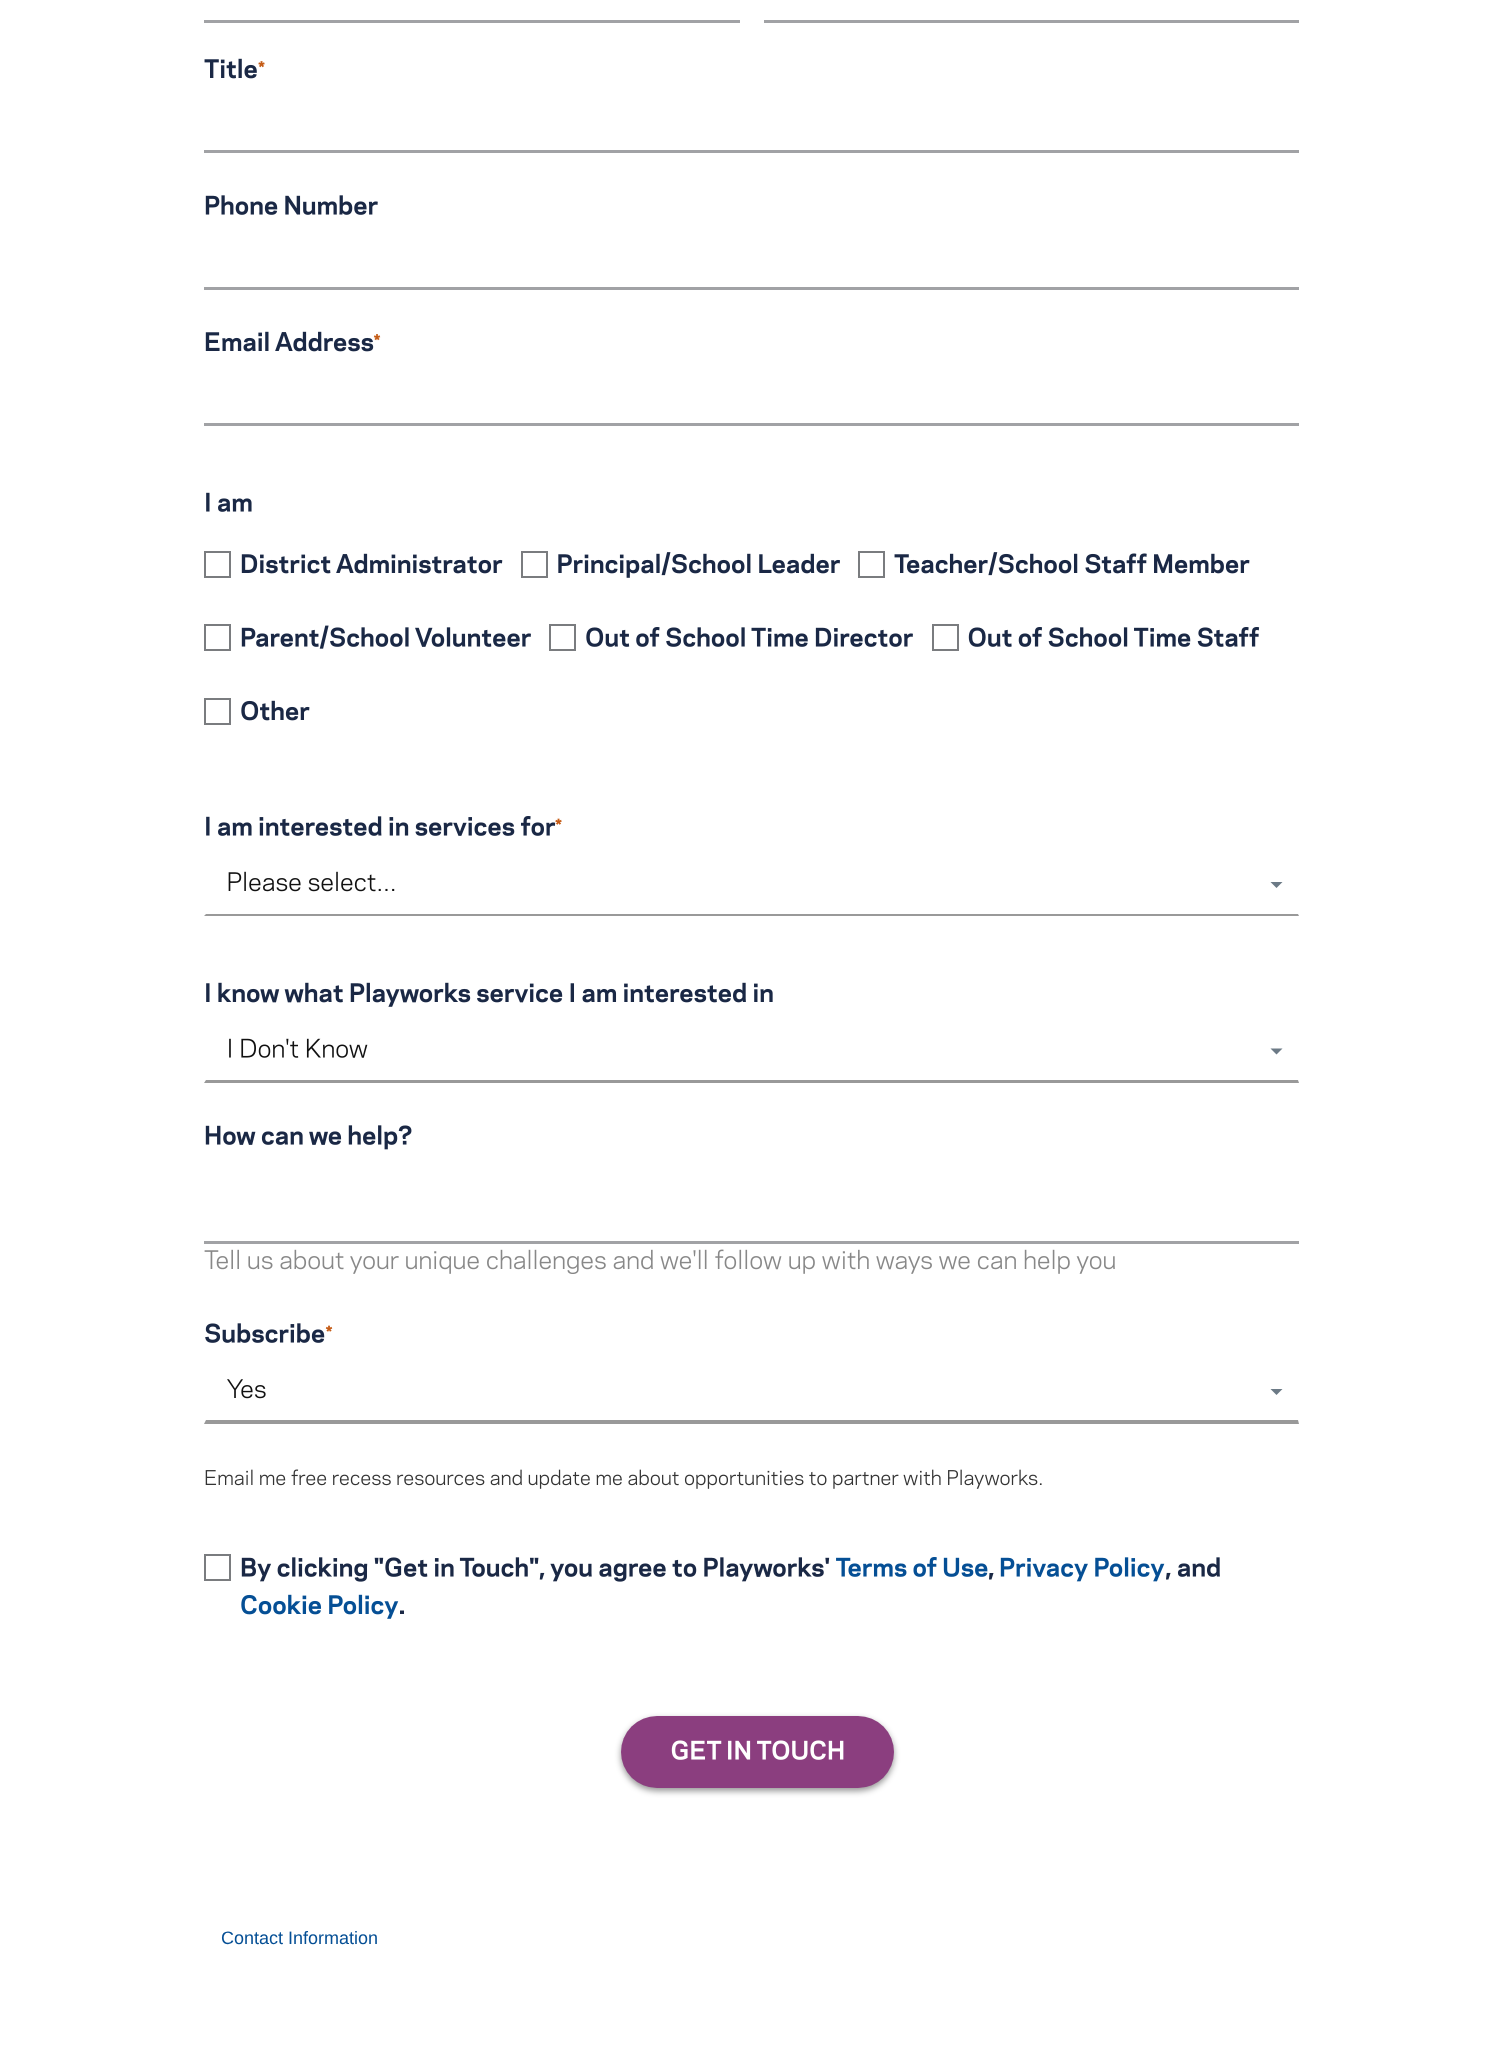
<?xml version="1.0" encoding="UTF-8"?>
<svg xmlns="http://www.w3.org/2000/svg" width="1503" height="2068">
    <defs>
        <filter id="blur1" x="-50%" y="-200%" width="200%" height="500%"><feGaussianBlur stdDeviation="3"/></filter>
    </defs>
    <rect width="100%" height="100%" fill="#FFFFFF"/>
    <rect x="204" y="20" width="536" height="3" fill="#A1A2A5"/>
    <rect x="764" y="20" width="535" height="3" fill="#A1A2A5"/>
    <image x="204" y="58" width="53" height="21" href="img_01.png"/>
    <image x="258" y="61" width="7" height="7" href="img_02.png"/>
    <rect x="204" y="150" width="1095" height="3" fill="#A1A2A5"/>
    <image x="205" y="195" width="173" height="20" href="img_03.png"/>
    <rect x="204" y="287" width="1095" height="3" fill="#A1A2A5"/>
    <image x="205" y="331" width="169" height="21" href="img_04.png"/>
    <image x="373" y="334" width="8" height="7" href="img_05.png"/>
    <rect x="204" y="423" width="1095" height="3" fill="#A1A2A5"/>
    <image x="206" y="492" width="46" height="20" href="img_06.png"/>
    <rect x="205" y="552" width="25" height="25" fill="none" stroke="#7A7C7F" stroke-width="2"/>
    <image x="241" y="553" width="262" height="21" href="img_07.png"/>
    <rect x="522" y="552" width="25" height="25" fill="none" stroke="#7A7C7F" stroke-width="2"/>
    <image x="558" y="552" width="282" height="26" href="img_08.png"/>
    <rect x="859" y="552" width="25" height="25" fill="none" stroke="#7A7C7F" stroke-width="2"/>
    <image x="894" y="552" width="356" height="24" href="img_09.png"/>
    <rect x="205" y="625" width="25" height="25" fill="none" stroke="#7A7C7F" stroke-width="2"/>
    <image x="241" y="625" width="290" height="24" href="img_10.png"/>
    <rect x="550" y="625" width="25" height="25" fill="none" stroke="#7A7C7F" stroke-width="2"/>
    <image x="586" y="627" width="327" height="20" href="img_11.png"/>
    <rect x="933" y="625" width="25" height="25" fill="none" stroke="#7A7C7F" stroke-width="2"/>
    <image x="968" y="627" width="292" height="20" href="img_12.png"/>
    <rect x="205" y="699" width="25" height="25" fill="none" stroke="#7A7C7F" stroke-width="2"/>
    <image x="241" y="700" width="69" height="21" href="img_13.png"/>
    <image x="206" y="816" width="350" height="20" href="img_14.png"/>
    <image x="555" y="818" width="7" height="7" href="img_15.png"/>
    <path d="M 1299 916 H 204 L 206 914 H 1298 Z" fill="#999999"/>
    <image x="228" y="871" width="167" height="21" href="img_16.png"/>
    <path d="M 1270.5 882 H 1282.5 L 1276.5 888 Z" fill="#6C7A86"/>
    <image x="206" y="982" width="567" height="25" href="img_17.png"/>
    <path d="M 1299 1083 H 204 L 206 1080 H 1298 Z" fill="#999999"/>
    <image x="229" y="1038" width="139" height="20" href="img_18.png"/>
    <path d="M 1270.5 1048.5 H 1282.5 L 1276.5 1054.5 Z" fill="#6C7A86"/>
    <image x="205" y="1125" width="207" height="25" href="img_19.png"/>
    <rect x="204" y="1241" width="1095" height="3" fill="#A1A2A5"/>
    <image x="204" y="1249" width="911" height="25" href="img_20.png"/>
    <image x="205" y="1323" width="120" height="20" href="img_21.png"/>
    <image x="325" y="1325" width="8" height="7" href="img_22.png"/>
    <path d="M 1299 1424 H 204 L 206 1420 H 1298 Z" fill="#999999"/>
    <image x="227" y="1379" width="39" height="20" href="img_23.png"/>
    <path d="M 1270.5 1389 H 1282.5 L 1276.5 1395 Z" fill="#6C7A86"/>
    <image x="205" y="1469" width="837" height="20" href="img_24.png"/>
    <rect x="205" y="1555" width="25" height="25" fill="none" stroke="#7A7C7F" stroke-width="2"/>
    <image x="241" y="1557" width="589" height="25" href="img_25.png"/>
    <image x="836" y="1557" width="152" height="20" href="img_26.png"/>
    <path d="M 993.5 1573 L 991.5 1579.5 H 989 L 989.5 1573 Z" fill="#1A2845"/>
    <image x="1000" y="1557" width="165" height="25" href="img_27.png"/>
    <image x="1166" y="1557" width="54" height="23" href="img_28.png"/>
    <image x="241" y="1594" width="158" height="25" href="img_29.png"/>
    <path d="M 404 1614 H 400 V 1610.5 H 404 Z" fill="#1A2845"/>
    <rect x="621" y="1719" width="273" height="72" rx="36" fill="#000000" fill-opacity="0.42" filter="url(#blur1)"/>
    <rect x="621" y="1716" width="273" height="72" rx="36" fill="#8B3E7F"/>
    <image x="671" y="1740" width="173" height="20" href="img_30.png"/>
    <text x="221" y="1944" font-family="Liberation Sans" font-size="18" fill="#054F95">Contact Information</text>
</svg>
